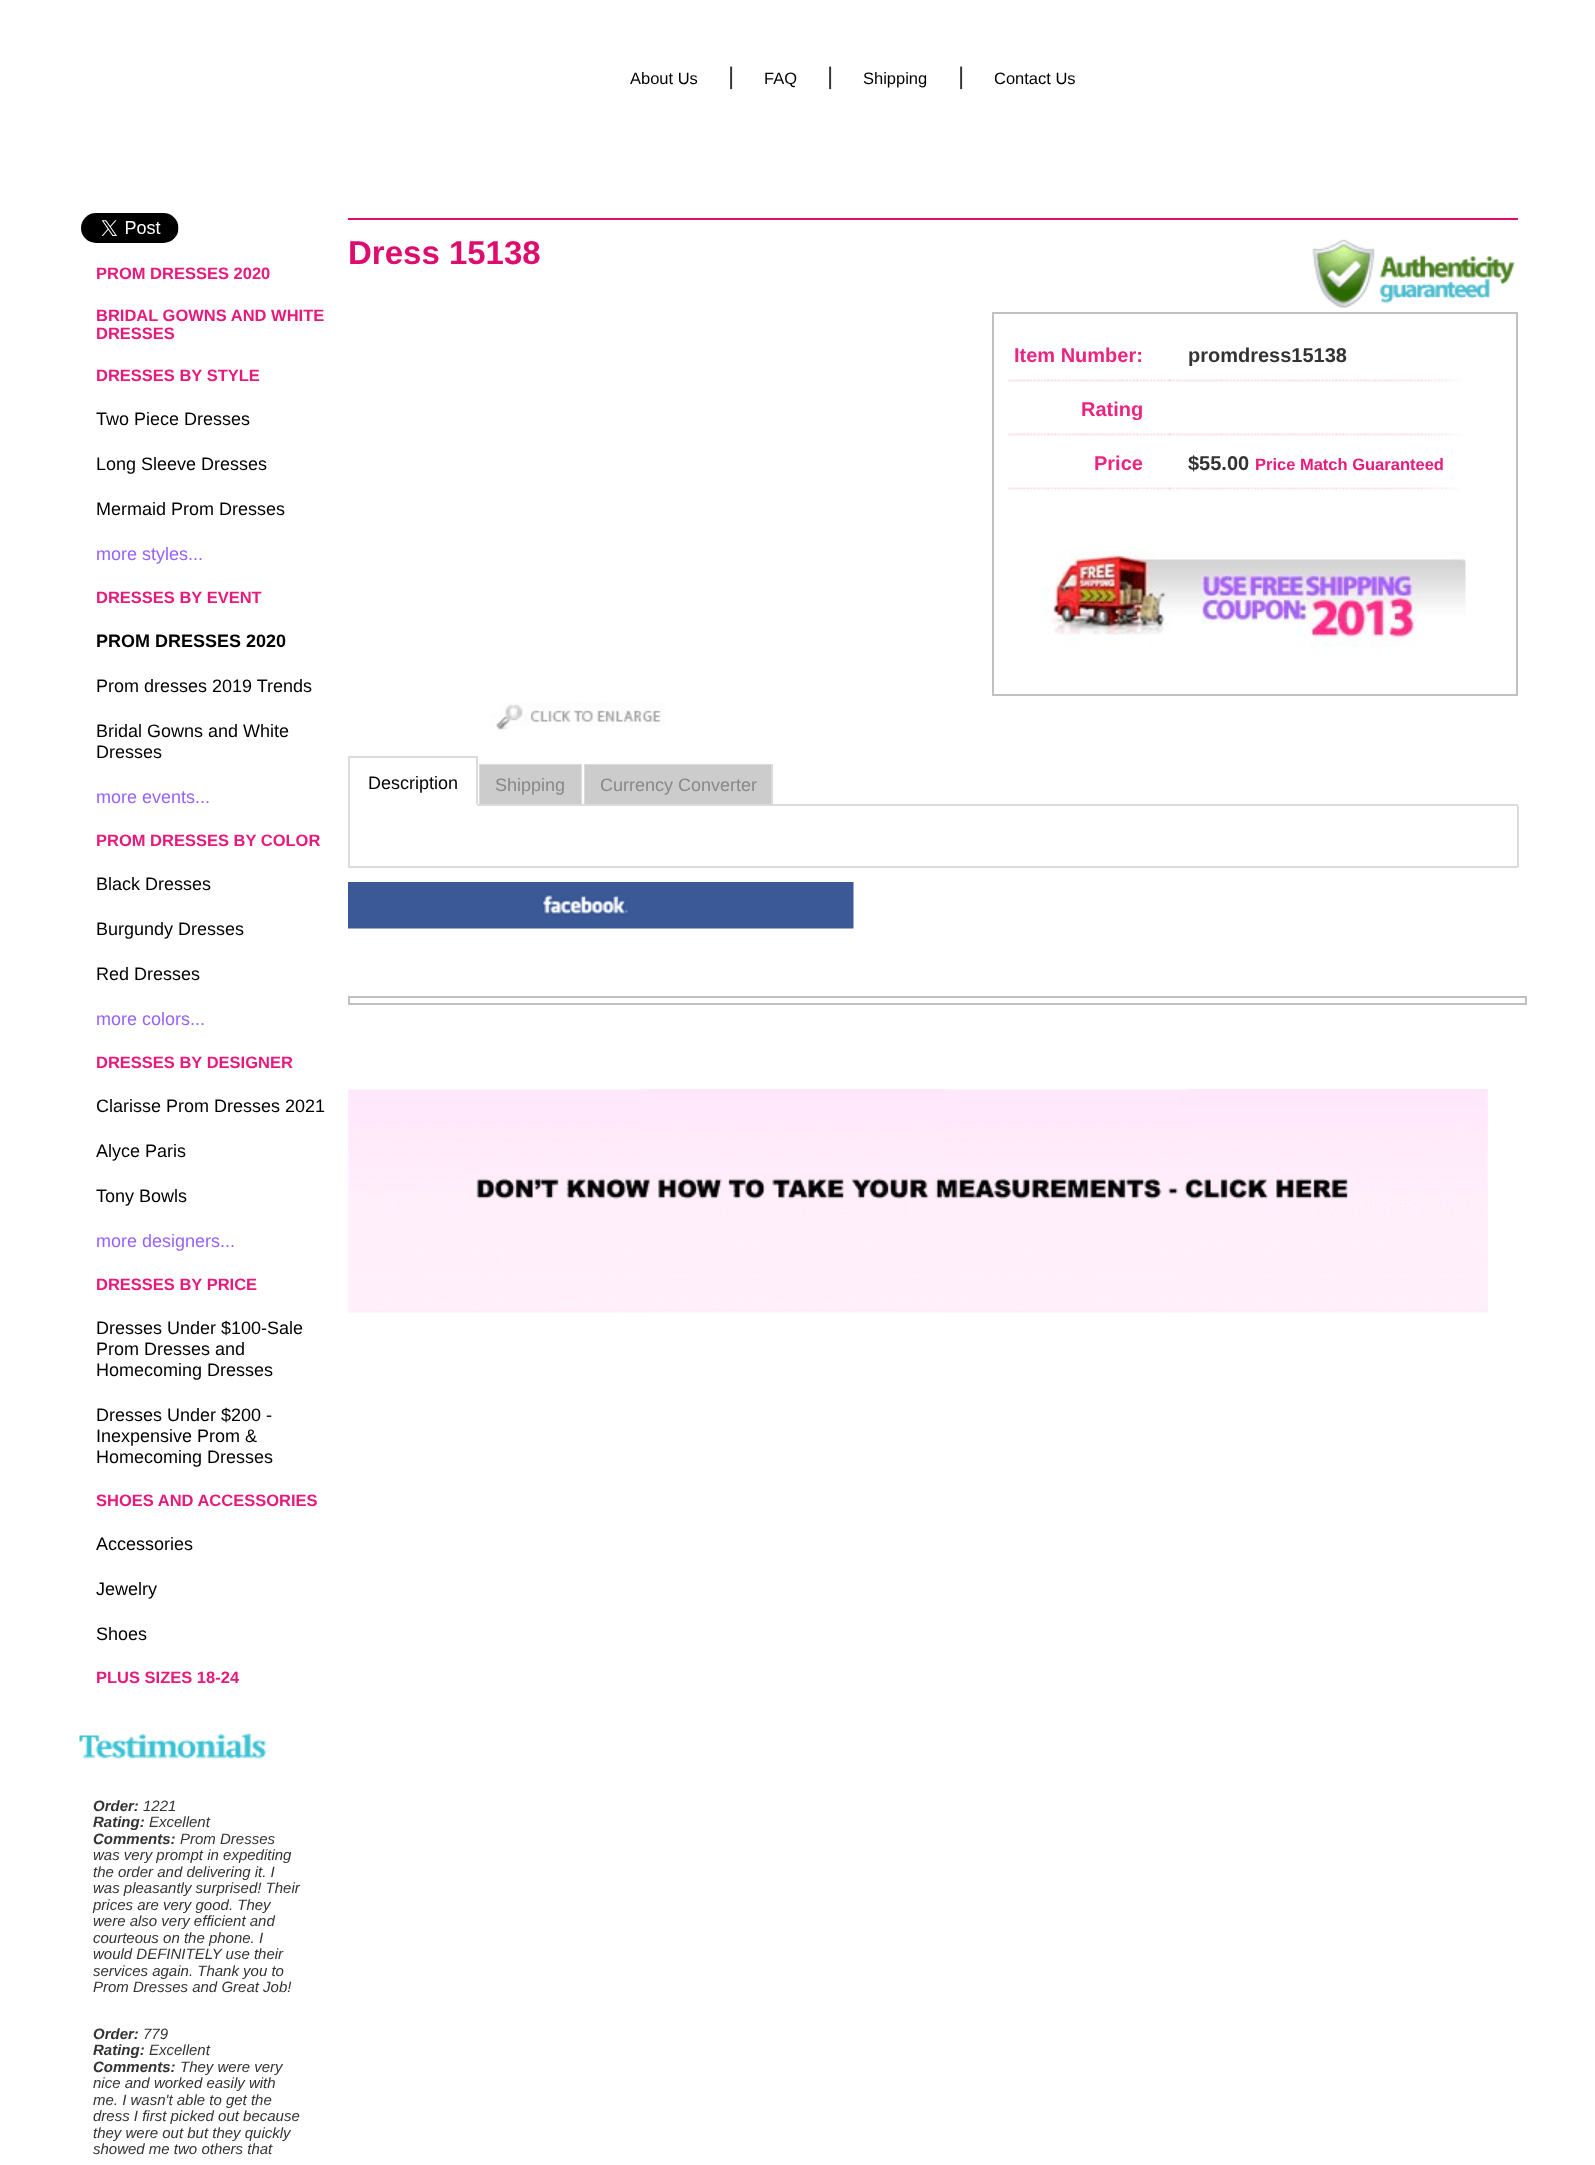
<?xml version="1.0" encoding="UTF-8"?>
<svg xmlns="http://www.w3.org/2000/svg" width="1595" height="2165">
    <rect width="100%" height="100%" fill="#FFFFFF"/>
    <text x="630" y="84" font-family="Liberation Sans" font-size="16.5" fill="#000000">About Us</text>
    <text x="728" y="84" font-family="Liberation Sans" font-size="24" fill="#333333">|</text>
    <text x="764" y="84" font-family="Liberation Sans" font-size="16.5" fill="#000000">FAQ</text>
    <text x="827" y="84" font-family="Liberation Sans" font-size="24" fill="#333333">|</text>
    <text x="863" y="84" font-family="Liberation Sans" font-size="16.5" fill="#000000">Shipping</text>
    <text x="958" y="84" font-family="Liberation Sans" font-size="24" fill="#333333">|</text>
    <text x="994" y="84" font-family="Liberation Sans" font-size="16.5" fill="#000000">Contact Us</text>
    <image x="81" y="213" width="98" height="30" href="img_01.png"/>
    <text x="96" y="279" font-family="Liberation Sans" font-size="16.5" font-weight="700" fill="#E71A7B">PROM DRESSES 2020</text>
    <text font-family="Liberation Sans" font-size="16.5" font-weight="700" fill="#E71A7B">
        <tspan x="96" y="321">BRIDAL GOWNS AND WHITE</tspan>
        <tspan x="96" y="339">DRESSES</tspan>
    </text>
    <text x="96" y="381" font-family="Liberation Sans" font-size="16.5" font-weight="700" fill="#E71A7B">DRESSES BY STYLE</text>
    <text x="96" y="425" font-family="Liberation Sans" font-size="18" fill="#000000">Two Piece Dresses</text>
    <text x="96" y="470" font-family="Liberation Sans" font-size="18" fill="#000000">Long Sleeve Dresses</text>
    <text x="96" y="515" font-family="Liberation Sans" font-size="18" fill="#000000">Mermaid Prom Dresses</text>
    <text x="96" y="560" font-family="Liberation Sans" font-size="18" fill="#9862FE">more styles...</text>
    <text x="96" y="603" font-family="Liberation Sans" font-size="16.5" font-weight="700" fill="#E71A7B">DRESSES BY EVENT</text>
    <text x="96" y="647" font-family="Liberation Sans" font-size="18" font-weight="700" fill="#000000">PROM DRESSES 2020</text>
    <text x="96" y="692" font-family="Liberation Sans" font-size="18" fill="#000000">Prom dresses 2019 Trends</text>
    <text font-family="Liberation Sans" font-size="18" fill="#000000">
        <tspan x="96" y="737">Bridal Gowns and White</tspan>
        <tspan x="96" y="758">Dresses</tspan>
    </text>
    <text x="96" y="803" font-family="Liberation Sans" font-size="18" fill="#9862FE">more events...</text>
    <text x="96" y="846" font-family="Liberation Sans" font-size="16.5" font-weight="700" fill="#E71A7B">PROM DRESSES BY COLOR</text>
    <text x="96" y="890" font-family="Liberation Sans" font-size="18" fill="#000000">Black Dresses</text>
    <text x="96" y="935" font-family="Liberation Sans" font-size="18" fill="#000000">Burgundy Dresses</text>
    <text x="96" y="980" font-family="Liberation Sans" font-size="18" fill="#000000">Red Dresses</text>
    <text x="96" y="1025" font-family="Liberation Sans" font-size="18" fill="#9862FE">more colors...</text>
    <text x="96" y="1068" font-family="Liberation Sans" font-size="16.5" font-weight="700" fill="#E71A7B">DRESSES BY DESIGNER</text>
    <text x="96" y="1112" font-family="Liberation Sans" font-size="18" fill="#000000">Clarisse Prom Dresses 2021</text>
    <text x="96" y="1157" font-family="Liberation Sans" font-size="18" fill="#000000">Alyce Paris</text>
    <text x="96" y="1202" font-family="Liberation Sans" font-size="18" fill="#000000">Tony Bowls</text>
    <text x="96" y="1247" font-family="Liberation Sans" font-size="18" fill="#9862FE">more designers...</text>
    <text x="96" y="1290" font-family="Liberation Sans" font-size="16.5" font-weight="700" fill="#E71A7B">DRESSES BY PRICE</text>
    <text font-family="Liberation Sans" font-size="18" fill="#000000">
        <tspan x="96" y="1334">Dresses Under $100-Sale</tspan>
        <tspan x="96" y="1355">Prom Dresses and</tspan>
        <tspan x="96" y="1376">Homecoming Dresses</tspan>
    </text>
    <text font-family="Liberation Sans" font-size="18" fill="#000000">
        <tspan x="96" y="1421">Dresses Under $200 -</tspan>
        <tspan x="96" y="1442">Inexpensive Prom &amp;</tspan>
        <tspan x="96" y="1463">Homecoming Dresses</tspan>
    </text>
    <text x="96" y="1506" font-family="Liberation Sans" font-size="16.5" font-weight="700" fill="#E71A7B">SHOES AND ACCESSORIES</text>
    <text x="96" y="1550" font-family="Liberation Sans" font-size="18" fill="#000000">Accessories</text>
    <text x="96" y="1595" font-family="Liberation Sans" font-size="18" fill="#000000">Jewelry</text>
    <text x="96" y="1640" font-family="Liberation Sans" font-size="18" fill="#000000">Shoes</text>
    <text x="96" y="1683" font-family="Liberation Sans" font-size="16.5" font-weight="700" fill="#E71A7B">PLUS SIZES 18-24</text>
    <image x="79" y="1733" width="187" height="26" href="img_02.png"/>
    <text x="93" y="1811" font-family="Liberation Sans" font-size="15" font-weight="700" font-style="italic" fill="#333333">Order:</text>
    <text x="143" y="1811" font-family="Liberation Sans" font-size="15" font-style="italic" fill="#333333">1221</text>
    <text x="93" y="1827" font-family="Liberation Sans" font-size="15" font-weight="700" font-style="italic" fill="#333333">Rating:</text>
    <text x="149" y="1827" font-family="Liberation Sans" font-size="15" font-style="italic" fill="#333333">Excellent</text>
    <text x="93" y="1844" font-family="Liberation Sans" font-size="15" font-weight="700" font-style="italic" fill="#333333">Comments:</text>
    <text x="180" y="1844" font-family="Liberation Sans" font-size="15" font-style="italic" fill="#333333">Prom Dresses</text>
    <text font-family="Liberation Sans" font-size="15" font-style="italic" fill="#333333">
        <tspan x="93" y="1860">was very prompt in expediting</tspan>
        <tspan x="93" y="1877">the order and delivering it. I</tspan>
        <tspan x="93" y="1893">was pleasantly surprised! Their</tspan>
        <tspan x="93" y="1910">prices are very good. They</tspan>
        <tspan x="93" y="1926">were also very efficient and</tspan>
        <tspan x="93" y="1943">courteous on the phone. I</tspan>
        <tspan x="93" y="1959">would DEFINITELY use their</tspan>
        <tspan x="93" y="1976">services again. Thank you to</tspan>
        <tspan x="93" y="1992">Prom Dresses and Great Job!</tspan>
    </text>
    <text x="93" y="2039" font-family="Liberation Sans" font-size="15" font-weight="700" font-style="italic" fill="#333333">Order:</text>
    <text x="143" y="2039" font-family="Liberation Sans" font-size="15" font-style="italic" fill="#333333">779</text>
    <text x="93" y="2055" font-family="Liberation Sans" font-size="15" font-weight="700" font-style="italic" fill="#333333">Rating:</text>
    <text x="149" y="2055" font-family="Liberation Sans" font-size="15" font-style="italic" fill="#333333">Excellent</text>
    <text x="93" y="2072" font-family="Liberation Sans" font-size="15" font-weight="700" font-style="italic" fill="#333333">Comments:</text>
    <text x="180" y="2072" font-family="Liberation Sans" font-size="15" font-style="italic" fill="#333333">They were very</text>
    <text font-family="Liberation Sans" font-size="15" font-style="italic" fill="#333333">
        <tspan x="93" y="2088">nice and worked easily with</tspan>
        <tspan x="93" y="2105">me. I wasn't able to get the</tspan>
        <tspan x="93" y="2121">dress I first picked out because</tspan>
        <tspan x="93" y="2138">they were out but they quickly</tspan>
        <tspan x="93" y="2154">showed me two others that</tspan>
    </text>
    <rect x="348" y="218" width="1170" height="2" fill="#DF0C6F"/>
    <text x="348" y="264" font-family="Liberation Sans" font-size="33" font-weight="700" fill="#DF0C6F">Dress 15138</text>
    <image x="1312" y="239" width="204" height="69" href="img_03.png"/>
    <rect x="993" y="313" width="524" height="382" fill="none" stroke="#C0C0C0" stroke-width="2"/>
    <text x="1014" y="362" font-family="Liberation Sans" font-size="20" font-weight="700" fill="#EB2381">Item Number:</text>
    <text x="1188" y="362" font-family="Liberation Sans" font-size="20" font-weight="700" fill="#333333">promdress15138</text>
    <image x="1008" y="366" width="453" height="17" href="img_04.png"/>
    <text x="1081" y="416" font-family="Liberation Sans" font-size="20" font-weight="700" fill="#EB2381">Rating</text>
    <image x="1008" y="420" width="453" height="17" href="img_04.png"/>
    <text x="1094" y="470" font-family="Liberation Sans" font-size="20" font-weight="700" fill="#EB2381">Price</text>
    <text x="1188" y="470" font-family="Liberation Sans" font-size="20" font-weight="700" fill="#333333">$55.00</text>
    <text x="1255" y="470" font-family="Liberation Sans" font-size="16.5" font-weight="700" fill="#E71A7B">Price Match Guaranteed</text>
    <image x="1008" y="487" width="453" height="4" href="img_05.png"/>
    <image x="1039" y="550" width="427" height="98" href="img_06.png"/>
    <image x="489" y="702" width="177" height="30" href="img_07.png"/>
    <rect x="478" y="804" width="1040" height="2" fill="#DBDBDB"/>
    <rect x="348" y="756" width="129" height="2" fill="#DBDBDB"/>
    <rect x="476" y="756" width="2" height="50" fill="#DBDBDB"/>
    <rect x="476" y="804" width="1" height="2" fill="#FFFFFF"/>
    <rect x="348" y="756" width="2" height="50" fill="#DBDBDB"/>
    <text x="368" y="789" font-family="Liberation Sans" font-size="18" fill="#000000">Description</text>
    <rect x="480" y="765" width="101" height="40" fill="none" stroke="#DBDBDB" stroke-width="2"/>
    <rect x="480" y="765" width="101" height="39" fill="#CCCCCC"/>
    <text x="495" y="791" font-family="Liberation Sans" font-size="18" fill="#888888">Shipping</text>
    <rect x="585" y="765" width="187" height="40" fill="none" stroke="#DBDBDB" stroke-width="2"/>
    <rect x="585" y="765" width="186" height="39" fill="#CCCCCC"/>
    <text x="600" y="791" font-family="Liberation Sans" font-size="18" fill="#888888">Currency Converter</text>
    <rect x="1517" y="806" width="2" height="61" fill="#DBDBDB"/>
    <rect x="348" y="866" width="1170" height="2" fill="#DBDBDB"/>
    <rect x="348" y="806" width="2" height="61" fill="#DBDBDB"/>
    <image x="348" y="882" width="506" height="47" href="img_08.png"/>
    <rect x="349" y="997" width="1177" height="7" fill="none" stroke="#C0C0C0" stroke-width="2"/>
    <image x="348" y="1089" width="1140" height="224" href="img_09.png"/>
</svg>
